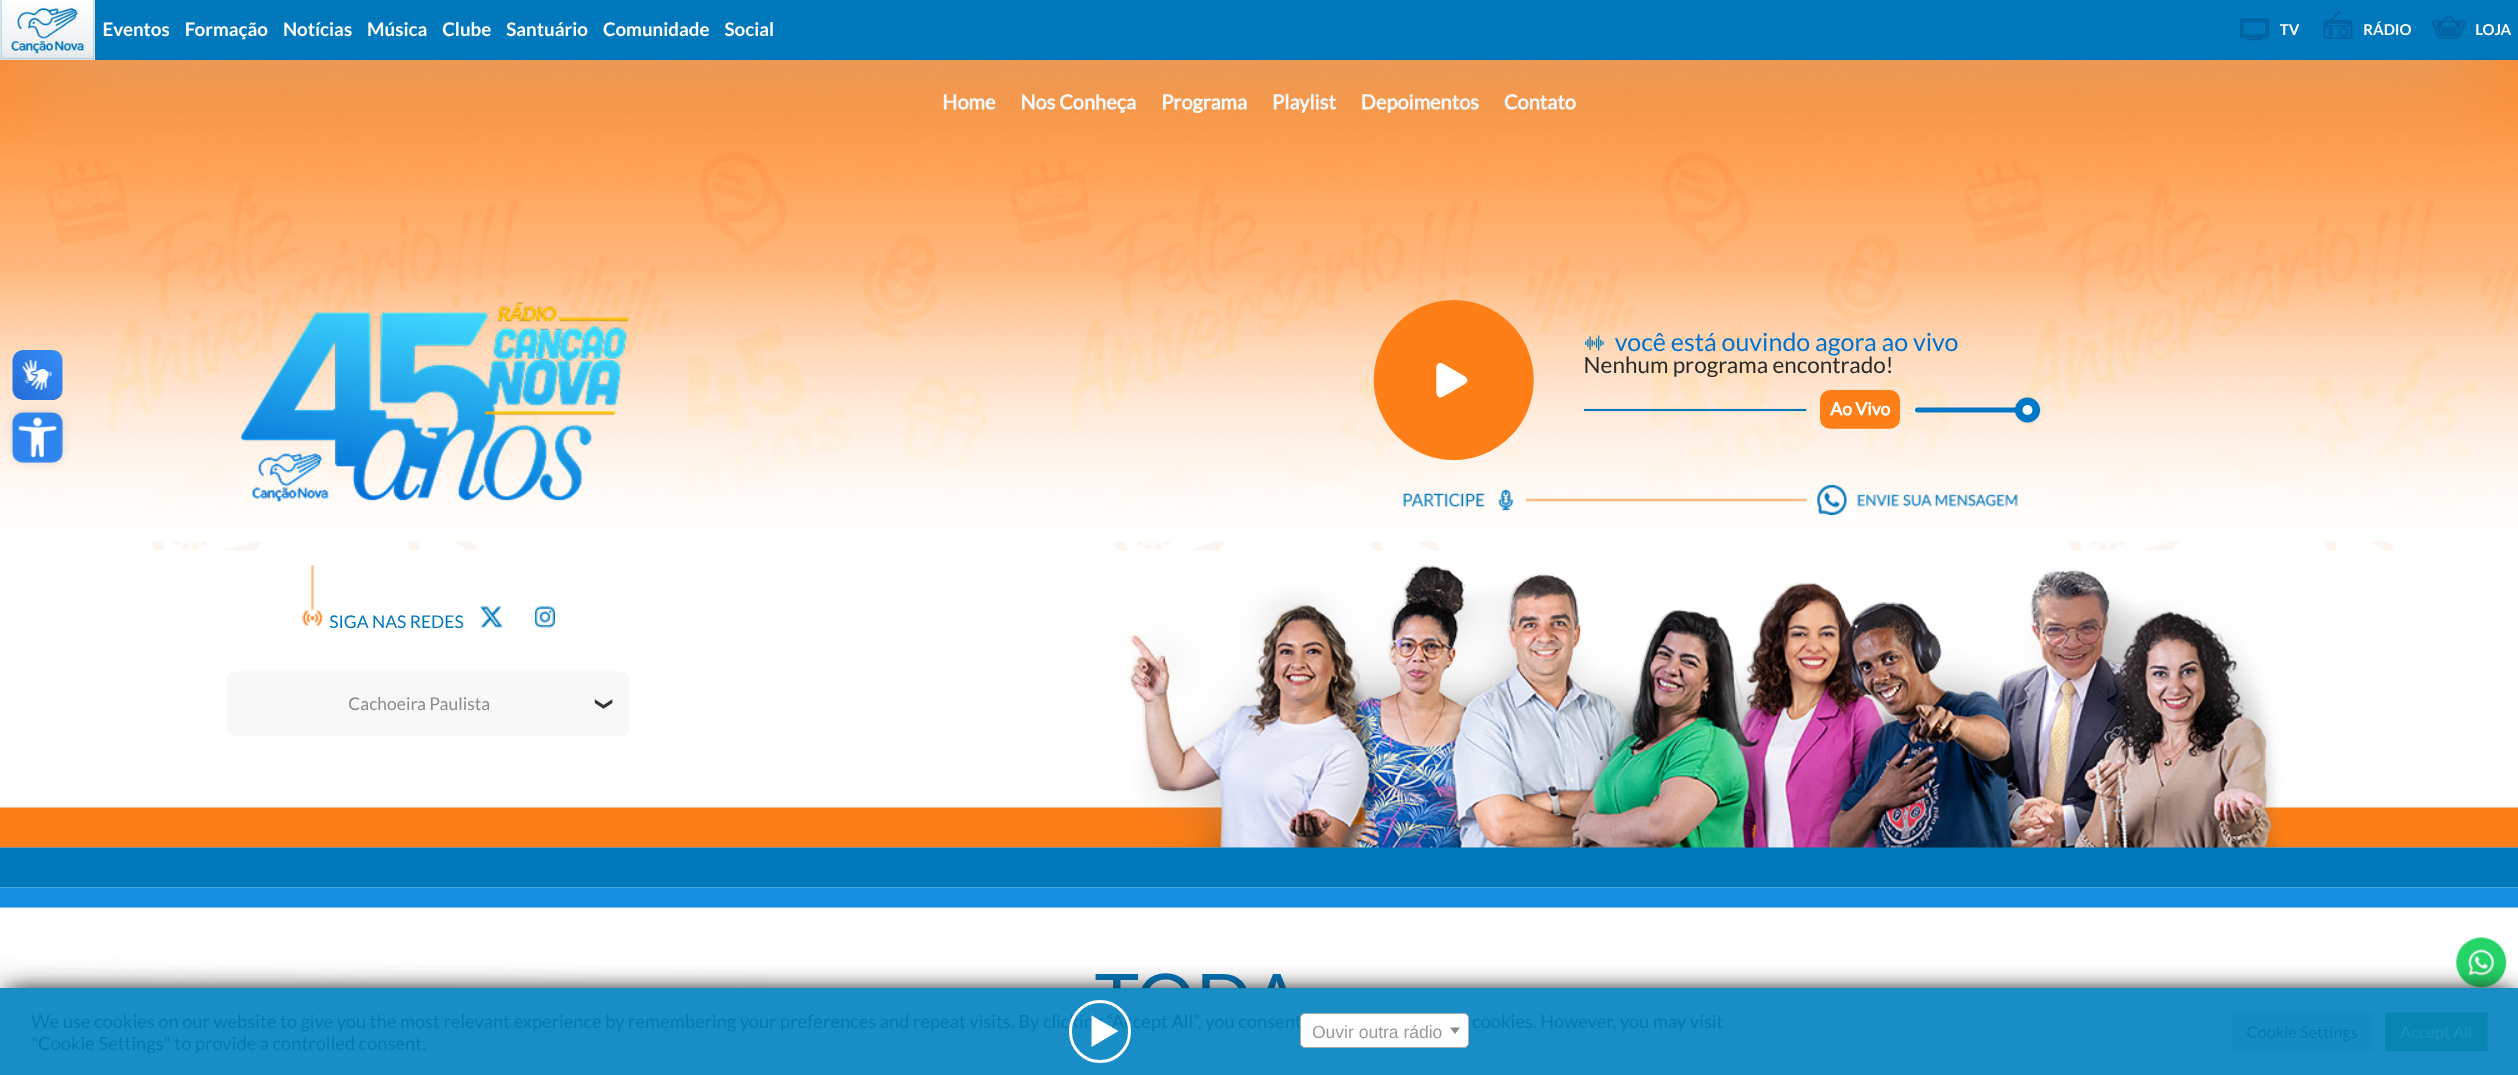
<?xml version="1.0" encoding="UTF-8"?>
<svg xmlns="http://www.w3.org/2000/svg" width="2518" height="1075">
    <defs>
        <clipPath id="clip1"><rect x="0" y="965" width="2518" height="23"/></clipPath>
        <filter id="blur1" x="-50%" y="-200%" width="200%" height="500%"><feGaussianBlur stdDeviation="12.5"/></filter>
    </defs>
    <rect width="100%" height="100%" fill="#FFFFFF"/>
    <image x="0" y="0" width="2518" height="1054" href="img_01.png"/>
    <g clip-path="url(#clip1)">
        <rect x="8" y="991" width="2503" height="73" fill="#000000" filter="url(#blur1)"/>
    </g>
    <rect x="0" y="988" width="2518" height="87" fill="#0082C0" fill-opacity="0.9"/>
    <rect x="1070.5" y="1001.5" width="59" height="60" rx="29.5" fill="none" stroke="#FFFFFF" stroke-width="3"/>
    <path d="M 1091.5 1015.5 L 1118.5 1031 L 1091.5 1047 Z" fill="#FFFFFF"/>
    <rect x="1300.5" y="1013.5" width="168" height="34" rx="4.5" fill="#FFFFFF" stroke="#AAAAAA"/>
    <text x="1312" y="1038" font-family="Liberation Sans" font-size="17.5" fill="#999999">Ouvir outra rádio</text>
    <path d="M 1450 1027.5 H 1460 L 1455 1034 Z" fill="#888888"/>
</svg>
